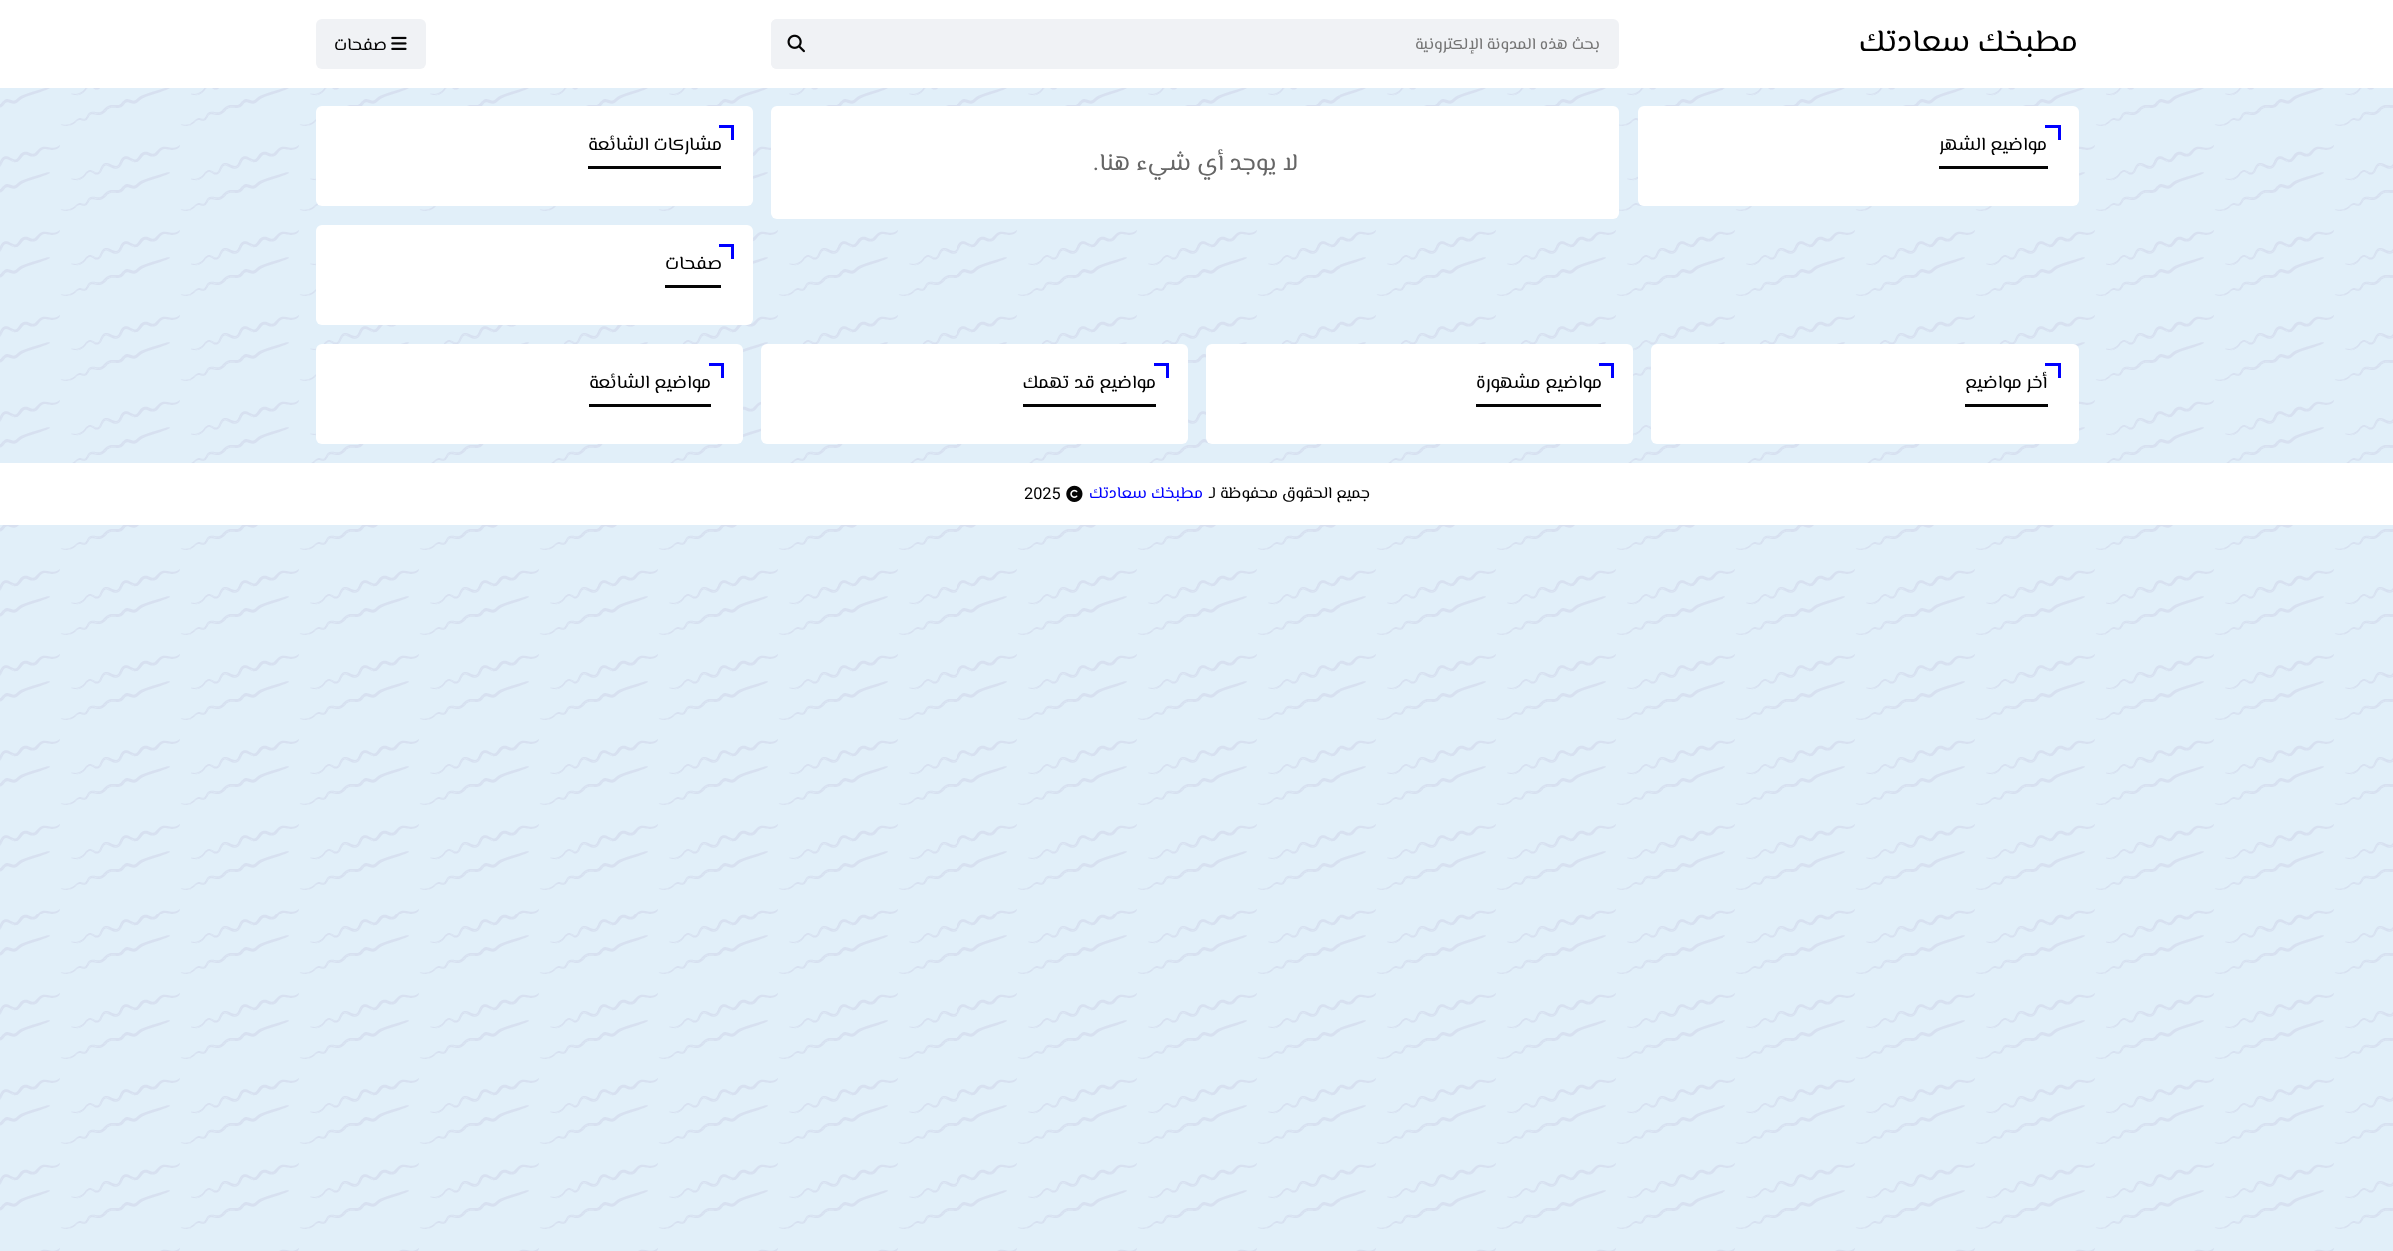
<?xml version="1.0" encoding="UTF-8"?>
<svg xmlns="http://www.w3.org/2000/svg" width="2393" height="1251">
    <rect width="100%" height="100%" fill="#E1EFF9"/>
    <image x="0" y="88" width="2393" height="1163" href="img_01.png"/>
    <rect x="0" y="0" width="2393" height="88" fill="#FFFFFF"/>
    <text x="2078" y="51" font-family="El Messiri" font-size="31.25" direction="rtl" fill="#000000">مطبخك سعادتك</text>
    <rect x="771" y="19" width="848" height="50" rx="6" fill="#F0F2F5"/>
    <text x="1600" y="49" font-family="El Messiri" font-size="16.25" direction="rtl" fill="#757575">بحث هذه المدونة الإلكترونية</text>
    <rect x="771" y="19" width="50" height="50" rx="6" fill="#F0F2F5"/>
    <image x="787" y="34" width="18" height="19" href="img_02.png"/>
    <rect x="316" y="19" width="110" height="50" rx="6" fill="#F0F2F5"/>
    <image x="391" y="36" width="16" height="14" href="img_03.png"/>
    <text x="387" y="50" font-family="El Messiri" font-size="17.5" direction="rtl" fill="#000000">صفحات</text>
    <rect x="1638" y="106" width="441" height="100" rx="6" fill="#FFFFFF"/>
    <rect x="2045" y="125" width="15" height="3" fill="#0000FF"/>
    <rect x="2058" y="125" width="3" height="15" fill="#0000FF"/>
    <rect x="1939" y="166" width="109" height="3" fill="#050505"/>
    <text x="2047" y="150" font-family="El Messiri" font-size="18.75" direction="rtl" fill="#000000">مواضيع الشهر</text>
    <rect x="771" y="106" width="848" height="113" rx="6" fill="#FFFFFF"/>
    <text x="1298" y="170" font-family="El Messiri" font-size="24" direction="rtl" fill="#666666">لا يوجد أي شيء هنا</text>
    <text x="1099" y="170" font-family="Roboto" font-size="24" direction="rtl" fill="#666666">.</text>
    <rect x="316" y="106" width="437" height="100" rx="6" fill="#FFFFFF"/>
    <rect x="719" y="125" width="15" height="3" fill="#0000FF"/>
    <rect x="731" y="125" width="3" height="15" fill="#0000FF"/>
    <rect x="588" y="166" width="133" height="3" fill="#050505"/>
    <text x="722" y="150" font-family="El Messiri" font-size="18.75" direction="rtl" fill="#000000">مشاركات الشائعة</text>
    <rect x="316" y="225" width="437" height="100" rx="6" fill="#FFFFFF"/>
    <rect x="719" y="244" width="15" height="3" fill="#0000FF"/>
    <rect x="731" y="244" width="3" height="15" fill="#0000FF"/>
    <rect x="665" y="285" width="56" height="3" fill="#050505"/>
    <text x="722" y="269" font-family="El Messiri" font-size="18.75" direction="rtl" fill="#000000">صفحات</text>
    <rect x="1651" y="344" width="428" height="100" rx="6" fill="#FFFFFF"/>
    <rect x="2045" y="363" width="15" height="3" fill="#0000FF"/>
    <rect x="2058" y="363" width="3" height="15" fill="#0000FF"/>
    <rect x="1965" y="404" width="83" height="3" fill="#050505"/>
    <text x="2047" y="388" font-family="El Messiri" font-size="18.75" direction="rtl" fill="#000000">أخر مواضيع</text>
    <rect x="1206" y="344" width="427" height="100" rx="6" fill="#FFFFFF"/>
    <rect x="1599" y="363" width="15" height="3" fill="#0000FF"/>
    <rect x="1611" y="363" width="3" height="15" fill="#0000FF"/>
    <rect x="1476" y="404" width="125" height="3" fill="#050505"/>
    <text x="1602" y="388" font-family="El Messiri" font-size="18.75" direction="rtl" fill="#000000">مواضيع مشهورة</text>
    <rect x="761" y="344" width="427" height="100" rx="6" fill="#FFFFFF"/>
    <rect x="1154" y="363" width="15" height="3" fill="#0000FF"/>
    <rect x="1166" y="363" width="3" height="15" fill="#0000FF"/>
    <rect x="1023" y="404" width="133" height="3" fill="#050505"/>
    <text x="1156" y="388" font-family="El Messiri" font-size="18.75" direction="rtl" fill="#000000">مواضيع قد تهمك</text>
    <rect x="316" y="344" width="427" height="100" rx="6" fill="#FFFFFF"/>
    <rect x="709" y="363" width="15" height="3" fill="#0000FF"/>
    <rect x="721" y="363" width="3" height="15" fill="#0000FF"/>
    <rect x="589" y="404" width="122" height="3" fill="#050505"/>
    <text x="711" y="388" font-family="El Messiri" font-size="18.75" direction="rtl" fill="#000000">مواضيع الشائعة</text>
    <rect x="0" y="463" width="2393" height="62" fill="#FFFFFF"/>
    <text x="1370" y="498" font-family="El Messiri" font-size="16.25" direction="rtl" fill="#000000">جميع الحقوق محفوظة لـ</text>
    <text x="1203" y="498" font-family="El Messiri" font-size="16.25" direction="rtl" fill="#0000FF">مطبخك سعادتك</text>
    <image x="1066" y="485" width="17" height="17" href="img_04.png"/>
    <text x="1024" y="499" font-family="Roboto" font-size="16.25" fill="#000000">2025</text>
</svg>
